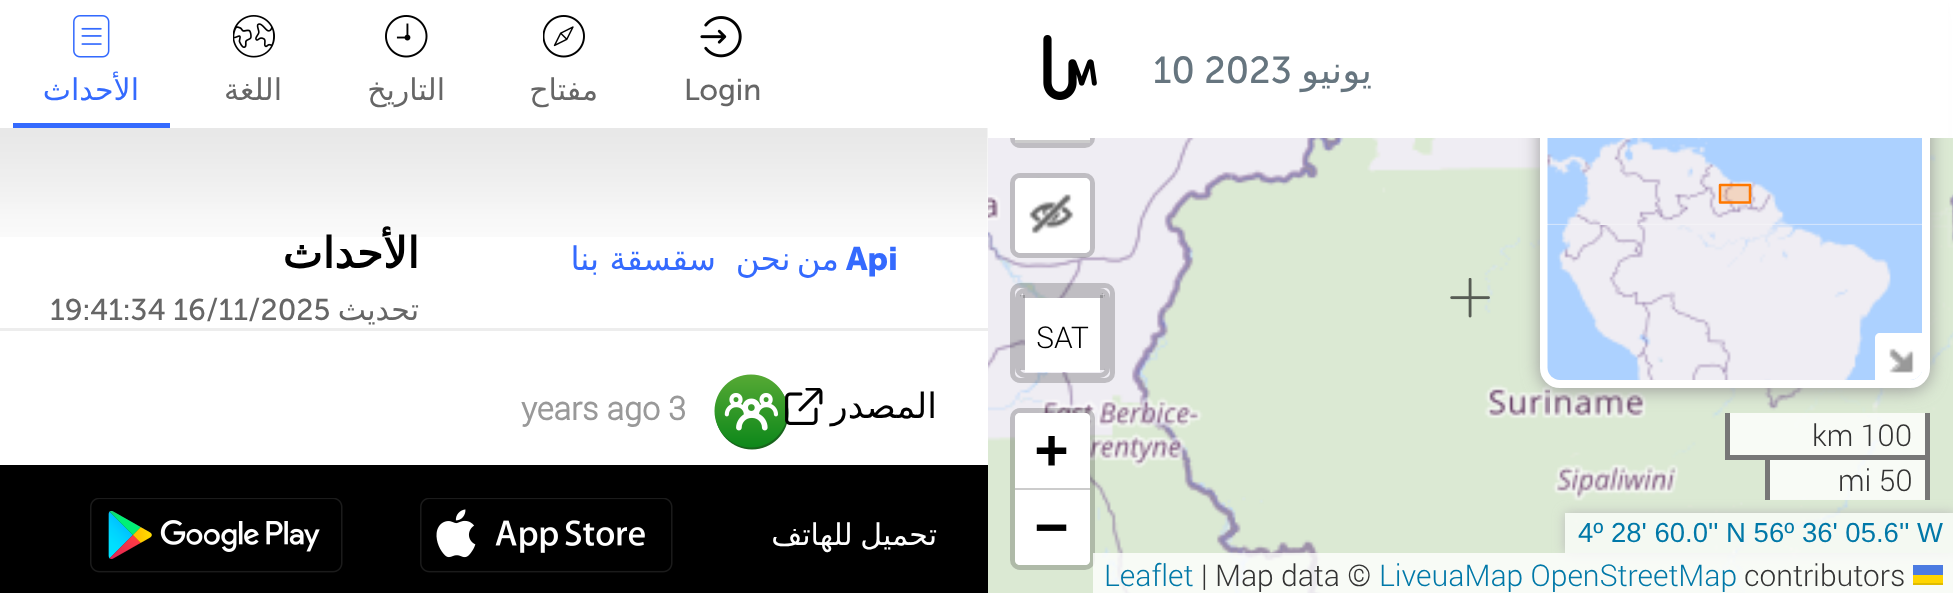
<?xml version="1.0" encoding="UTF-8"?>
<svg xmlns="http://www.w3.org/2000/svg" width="1953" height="593">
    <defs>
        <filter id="blur1" x="-50%" y="-200%" width="200%" height="500%"><feGaussianBlur stdDeviation="9"/></filter>
        <clipPath id="clip1"><path d="M 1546 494 H 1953 V 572 H 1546 Z M 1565 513 H 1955 V 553 H 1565 Z" clip-rule="evenodd"/></clipPath>
        <filter id="blur2" x="-50%" y="-200%" width="200%" height="500%"><feGaussianBlur stdDeviation="6"/></filter>
    </defs>
    <rect width="100%" height="100%" fill="#FFFFFF"/>
    <rect x="13" y="123" width="157" height="5" fill="#346AFE"/>
    <image x="73" y="15" width="37" height="43" href="img_01.png"/>
    <text x="139" y="100" font-family="DejaVu Sans" font-size="30" direction="rtl" fill="#346AFE">الأحداث</text>
    <image x="233" y="15" width="42" height="43" href="img_02.png"/>
    <text x="282" y="100" font-family="DejaVu Sans" font-size="30" direction="rtl" fill="#666666">اللغة</text>
    <image x="385" y="15" width="43" height="43" href="img_03.png"/>
    <text x="445" y="100" font-family="DejaVu Sans" font-size="30" direction="rtl" fill="#666666">التاريخ</text>
    <image x="543" y="15" width="42" height="43" href="img_04.png"/>
    <text x="598" y="100" font-family="DejaVu Sans" font-size="30" direction="rtl" fill="#666666">مفتاح</text>
    <image x="700" y="16" width="42" height="42" href="img_05.png"/>
    <text x="684" y="100" font-family="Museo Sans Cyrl" font-size="30" fill="#666666">Login</text>
    <image x="0" y="128" width="988" height="109" href="img_06.png"/>
    <rect x="0" y="328" width="988" height="3" fill="#EDEDED"/>
    <text x="419" y="268" font-family="DejaVu Sans" font-size="42.5" font-weight="700" direction="rtl" fill="#000000">الأحداث</text>
    <text x="50" y="320" font-family="Museo Sans Cyrl" font-size="30" fill="#666666">19:41:34 16/11/2025</text>
    <text x="419" y="320" font-family="DejaVu Sans" font-size="30" direction="rtl" fill="#666666">تحديث</text>
    <text x="716" y="270" font-family="DejaVu Sans" font-size="32.5" direction="rtl" fill="#346AFE">سقسقة بنا</text>
    <text x="839" y="270" word-spacing="-4" font-family="DejaVu Sans" font-size="32.5" direction="rtl" fill="#346AFE">من نحن</text>
    <text x="846" y="270" font-family="Museo Sans Cyrl" font-size="32.5" font-weight="700" fill="#346AFE">Api</text>
    <text x="521" y="420" font-family="Roboto" font-size="32.5" font-weight="700" fill="#999999">years ago 3</text>
    <image x="714" y="374" width="75" height="76" href="img_07.png"/>
    <image x="785" y="388" width="38" height="37" href="img_08.png"/>
    <text x="937" y="418" font-family="DejaVu Sans" font-size="35" direction="rtl" fill="#000000">المصدر</text>
    <rect x="0" y="465" width="988" height="128" fill="#000000"/>
    <image x="90" y="498" width="253" height="75" href="img_09.png"/>
    <image x="420" y="498" width="253" height="75" href="img_10.png"/>
    <text x="937" y="545" word-spacing="-2" font-family="DejaVu Sans" font-size="30" direction="rtl" fill="#FFFFFF">تحميل للهاتف</text>
    <image x="988" y="138" width="562" height="455" href="img_12.png"/>
    <rect x="1012.5" y="62.5" width="80" height="83" rx="7.5" fill="none" stroke="#000000" stroke-opacity="0.2" stroke-width="5"/>
    <image x="1550" y="138" width="403" height="455" href="img_13.png"/>
    <rect x="1540" y="0" width="390" height="390" rx="20" fill="#999999" filter="url(#blur1)"/>
    <rect x="1544" y="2" width="382" height="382" rx="16" fill="#F8F8F9" stroke="#FFFFFF" stroke-width="8"/>
    <rect x="1010" y="0" width="938" height="138" fill="#FFFFFF"/>
    <image x="1043" y="35" width="54" height="65" href="img_11.png"/>
    <text x="1153" y="83" font-family="Museo Sans Cyrl" font-size="37.5" fill="#66757F">10 2023</text>
    <text x="1372" y="83" font-family="DejaVu Sans" font-size="37.5" direction="rtl" fill="#66757F">يونيو</text>
    <image x="1450" y="278" width="40" height="40" href="img_14.png"/>
    <rect x="1015" y="138" width="75" height="2" fill="#FFFFFF"/>
    <rect x="1015" y="140" width="75" height="3" fill="#CCCCCC"/>
    <rect x="1012.5" y="175.5" width="80" height="80" rx="7.5" fill="none" stroke="#000000" stroke-opacity="0.2" stroke-width="5"/>
    <rect x="1015" y="178" width="75" height="75" rx="5" fill="#FFFFFF"/>
    <image x="1029" y="194" width="45" height="40" href="img_15.png"/>
    <rect x="1012.5" y="285.5" width="100" height="95" rx="7.5" fill="none" stroke="#000000" stroke-opacity="0.2" stroke-width="5"/>
    <rect x="1017.5" y="290.5" width="90" height="85" rx="7.5" fill="none" stroke="#000000" stroke-opacity="0.2" stroke-width="5"/>
    <path d="M 1025 298 H 1100 V 372 H 1025 V 368 Z" fill="#FFFFFF"/>
    <rect x="1023" y="293" width="80" height="5" fill="#000000" fill-opacity="0.2"/>
    <rect x="1100" y="295" width="5" height="75" fill="#000000" fill-opacity="0.2"/>
    <rect x="1020" y="295" width="5" height="75" fill="#000000" fill-opacity="0.2"/>
    <text x="1036" y="348" font-family="Roboto" font-size="30" font-weight="300" fill="#000000">SAT</text>
    <rect x="1012.5" y="410.5" width="80" height="157" rx="7.5" fill="none" stroke="#000000" stroke-opacity="0.2" stroke-width="5"/>
    <path d="M 1020 413 H 1085 C 1088 413 1090 415 1090 418 V 490 H 1015 V 418 C 1015 415 1017 413 1020 413 Z" fill="#FFFFFF"/>
    <rect x="1015" y="488" width="75" height="2" fill="#CCCCCC"/>
    <text x="1035" y="468" font-family="DejaVu Sans Mono" font-size="55" font-weight="700" fill="#000000">+</text>
    <path d="M 1015 490 H 1090 V 560 C 1090 563 1088 565 1085 565 H 1020 C 1017 565 1015 563 1015 560 Z" fill="#FFFFFF"/>
    <text x="1035" y="545" font-family="DejaVu Sans Mono" font-size="55" font-weight="700" fill="#000000">−</text>
    <image x="1547" y="138" width="375" height="88" href="img_16.png"/>
    <image x="1547" y="225" width="375" height="155" href="img_17.png"/>
    <rect x="1721" y="186" width="28" height="16" fill="#FF7800" fill-opacity="0.2"/>
    <path d="M 1720 202.5 V 185 H 1750 V 202.5 Z" fill="none" stroke="#FF7800" stroke-width="2.5" stroke-linecap="round" stroke-linejoin="round"/>
    <path d="M 1880 333 H 1923 V 367 C 1923 374 1917 380 1910 380 H 1875 V 338 C 1875 335 1877 333 1880 333 Z" fill="#FFFFFF"/>
    <image x="1889" y="348" width="25" height="25" href="img_18.png"/>
    <rect x="1730" y="413" width="195" height="42" fill="#FFFFFF" fill-opacity="0.8"/>
    <rect x="1925" y="413" width="5" height="47" fill="#777777"/>
    <rect x="1725" y="455" width="205" height="5" fill="#777777"/>
    <rect x="1725" y="413" width="5" height="47" fill="#777777"/>
    <text x="1812" y="446" font-family="Roboto" font-size="30" font-weight="300" fill="#333333">km 100</text>
    <rect x="1770" y="460" width="155" height="40" fill="#FFFFFF" fill-opacity="0.8"/>
    <rect x="1925" y="455" width="5" height="45" fill="#777777"/>
    <rect x="1765" y="455" width="5" height="45" fill="#777777"/>
    <text x="1838" y="491" font-family="Roboto" font-size="30" font-weight="300" fill="#333333">mi 50</text>
    <g clip-path="url(#clip1)">
        <rect x="1565" y="513" width="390" height="40" fill="#BBBBBB" filter="url(#blur2)"/>
    </g>
    <rect x="1565" y="513" width="388" height="40" fill="#FFFFFF" fill-opacity="0.7"/>
    <text x="1578" y="542" font-family="Liberation Sans" font-size="27.5" fill="#0078A8">4º 28' 60.0'' N 56º 36' 05.6'' W</text>
    <rect x="1093" y="553" width="860" height="40" fill="#FFFFFF" fill-opacity="0.8"/>
    <text x="1104" y="586" font-family="Roboto" font-size="30" font-weight="300" fill="#0078A8">Leaflet</text>
    <rect x="1913" y="565" width="30" height="10" fill="#4C7BE1"/>
    <rect x="1913" y="575" width="30" height="8" fill="#FFD500"/>
    <rect x="1913" y="583" width="30" height="2" fill="#E0BC00"/>
    <text x="1201" y="586" font-family="Roboto" font-size="30" font-weight="300" fill="#333333">| Map data ©</text>
    <text x="1379" y="586" font-family="Roboto" font-size="30" font-weight="300" fill="#0078A8">LiveuaMap OpenStreetMap</text>
    <text x="1744" y="586" font-family="Roboto" font-size="30" font-weight="300" fill="#333333">contributors</text>
</svg>
